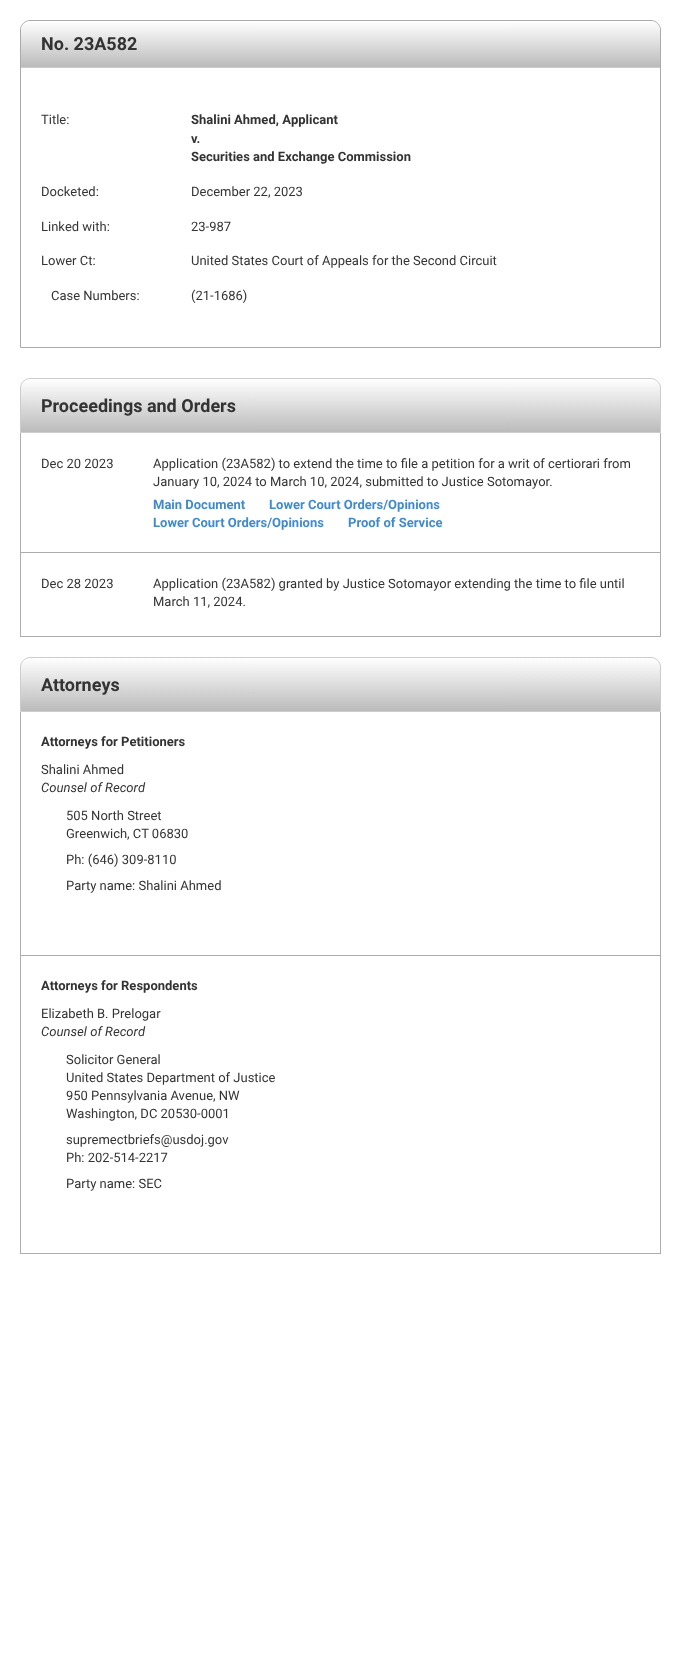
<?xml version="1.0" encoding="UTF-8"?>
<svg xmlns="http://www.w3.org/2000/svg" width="681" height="1653">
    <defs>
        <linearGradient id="g1" gradientUnits="userSpaceOnUse" x1="341" y1="21" x2="341" y2="67"><stop offset="0" stop-color="#FFFFFF"/><stop offset="1" stop-color="#BBBBBB"/></linearGradient>
        <clipPath id="clip1"><path d="M 30 378 H 651 C 656.5 378 661 382.5 661 388 V 433 H 20 V 388 C 20 382.5 24.5 378 30 378 Z"/></clipPath>
        <linearGradient id="g2" gradientUnits="userSpaceOnUse" x1="341" y1="379" x2="341" y2="432"><stop offset="0" stop-color="#FFFFFF"/><stop offset="1" stop-color="#BBBBBB"/></linearGradient>
        <clipPath id="clip2"><path d="M 30 657 H 651 C 656.5 657 661 661.5 661 667 V 712 H 20 V 667 C 20 661.5 24.5 657 30 657 Z"/></clipPath>
        <linearGradient id="g3" gradientUnits="userSpaceOnUse" x1="341" y1="658" x2="341" y2="711"><stop offset="0" stop-color="#FFFFFF"/><stop offset="1" stop-color="#BBBBBB"/></linearGradient>
    </defs>
    <rect width="100%" height="100%" fill="#FFFFFF"/>
    <path d="M 30 20.5 H 651 C 656 20.5 660.5 25 660.5 30 V 347.5 H 20.5 V 30 C 20.5 25 25 20.5 30 20.5 Z" fill="none" stroke="#AAAAAA"/>
    <path d="M 31 21 H 650 C 655.5 21 660 25.5 660 31 V 67 H 21 V 31 C 21 25.5 25.5 21 31 21 Z" fill="url(#g1)"/>
    <rect x="21" y="67" width="639" height="1" fill="#CCCCCC"/>
    <text x="41" y="50" font-family="Roboto" font-size="18" font-weight="700" fill="#333333">No. 23A582</text>
    <text x="41" y="124" font-family="Roboto" font-size="13" fill="#333333">Title:</text>
    <text font-family="Roboto" font-size="13" font-weight="700" fill="#333333">
        <tspan x="191" y="124">Shalini Ahmed, Applicant</tspan>
        <tspan x="191" y="143">v.</tspan>
        <tspan x="191" y="161">Securities and Exchange Commission</tspan>
    </text>
    <text x="41" y="196" font-family="Roboto" font-size="13" fill="#333333">Docketed:</text>
    <text x="191" y="196" font-family="Roboto" font-size="13" fill="#333333">December 22, 2023</text>
    <text x="41" y="231" font-family="Roboto" font-size="13" fill="#333333">Linked with:</text>
    <text x="191" y="231" font-family="Roboto" font-size="13" fill="#333333">23-987</text>
    <text x="41" y="265" font-family="Roboto" font-size="13" fill="#333333">Lower Ct:</text>
    <text x="191" y="265" font-family="Roboto" font-size="13" fill="#333333">United States Court of Appeals for the Second Circuit</text>
    <text x="51" y="300" font-family="Roboto" font-size="13" fill="#333333">Case Numbers:</text>
    <text x="191" y="300" font-family="Roboto" font-size="13" fill="#333333">(21-1686)</text>
    <g clip-path="url(#clip1)">
        <rect x="20" y="379" width="641" height="53" fill="url(#g2)"/>
    </g>
    <path d="M 30 378.5 H 651 C 656 378.5 660.5 383 660.5 388 V 432.5 H 20.5 V 388 C 20.5 383 25 378.5 30 378.5 Z" fill="none" stroke="#CCCCCC"/>
    <text x="41" y="412" font-family="Roboto" font-size="18" font-weight="700" fill="#333333">Proceedings and Orders</text>
    <rect x="660" y="433" width="1" height="204" fill="#ADADAD"/>
    <rect x="20" y="552" width="641" height="1" fill="#ADADAD"/>
    <rect x="20" y="433" width="1" height="120" fill="#ADADAD"/>
    <text x="41" y="468" font-family="Roboto" font-size="13" fill="#333333">Dec 20 2023</text>
    <text font-family="Roboto" font-size="13" fill="#333333">
        <tspan x="153" y="468">Application (23A582) to extend the time to file a petition for a writ of certiorari from</tspan>
        <tspan x="153" y="486">January 10, 2024 to March 10, 2024, submitted to Justice Sotomayor.</tspan>
    </text>
    <text x="153" y="509" font-family="Roboto" font-size="13" font-weight="700" fill="#428BCA">Main Document</text>
    <text x="269" y="509" font-family="Roboto" font-size="13" font-weight="700" fill="#428BCA">Lower Court Orders/Opinions</text>
    <text x="153" y="527" font-family="Roboto" font-size="13" font-weight="700" fill="#428BCA">Lower Court Orders/Opinions</text>
    <text x="348" y="527" font-family="Roboto" font-size="13" font-weight="700" fill="#428BCA">Proof of Service</text>
    <rect x="20" y="636" width="641" height="1" fill="#ADADAD"/>
    <rect x="20" y="553" width="1" height="84" fill="#ADADAD"/>
    <text x="41" y="588" font-family="Roboto" font-size="13" fill="#333333">Dec 28 2023</text>
    <text font-family="Roboto" font-size="13" fill="#333333">
        <tspan x="153" y="588">Application (23A582) granted by Justice Sotomayor extending the time to file until</tspan>
        <tspan x="153" y="606">March 11, 2024.</tspan>
    </text>
    <g clip-path="url(#clip2)">
        <rect x="20" y="658" width="641" height="53" fill="url(#g3)"/>
    </g>
    <path d="M 30 657.5 H 651 C 656 657.5 660.5 662 660.5 667 V 711.5 H 20.5 V 667 C 20.5 662 25 657.5 30 657.5 Z" fill="none" stroke="#CCCCCC"/>
    <text x="41" y="691" font-family="Roboto" font-size="18" font-weight="700" fill="#333333">Attorneys</text>
    <rect x="660" y="712" width="1" height="542" fill="#ADADAD"/>
    <rect x="20" y="955" width="641" height="1" fill="#ADADAD"/>
    <rect x="20" y="712" width="1" height="244" fill="#ADADAD"/>
    <text x="41" y="746" font-family="Roboto" font-size="13" font-weight="700" fill="#333333">Attorneys for Petitioners</text>
    <text x="41" y="774" font-family="Roboto" font-size="13" fill="#333333">Shalini Ahmed</text>
    <text x="41" y="792" font-family="Roboto" font-size="13" font-style="italic" fill="#333333">Counsel of Record</text>
    <text font-family="Roboto" font-size="13" fill="#333333">
        <tspan x="66" y="820">505 North Street</tspan>
        <tspan x="66" y="838">Greenwich, CT 06830</tspan>
    </text>
    <text x="66" y="864" font-family="Roboto" font-size="13" fill="#333333">Ph: (646) 309-8110</text>
    <text x="66" y="890" font-family="Roboto" font-size="13" fill="#333333">Party name: Shalini Ahmed</text>
    <rect x="20" y="1253" width="641" height="1" fill="#ADADAD"/>
    <rect x="20" y="956" width="1" height="298" fill="#ADADAD"/>
    <text x="41" y="990" font-family="Roboto" font-size="13" font-weight="700" fill="#333333">Attorneys for Respondents</text>
    <text x="41" y="1018" font-family="Roboto" font-size="13" fill="#333333">Elizabeth B. Prelogar</text>
    <text x="41" y="1036" font-family="Roboto" font-size="13" font-style="italic" fill="#333333">Counsel of Record</text>
    <text font-family="Roboto" font-size="13" fill="#333333">
        <tspan x="66" y="1064">Solicitor General</tspan>
        <tspan x="66" y="1082">United States Department of Justice</tspan>
        <tspan x="66" y="1100">950 Pennsylvania Avenue, NW</tspan>
        <tspan x="66" y="1118">Washington, DC 20530-0001</tspan>
    </text>
    <text font-family="Roboto" font-size="13" fill="#333333">
        <tspan x="66" y="1144">supremectbriefs@usdoj.gov</tspan>
        <tspan x="66" y="1162">Ph: 202-514-2217</tspan>
    </text>
    <text x="66" y="1188" font-family="Roboto" font-size="13" fill="#333333">Party name: SEC</text>
</svg>
